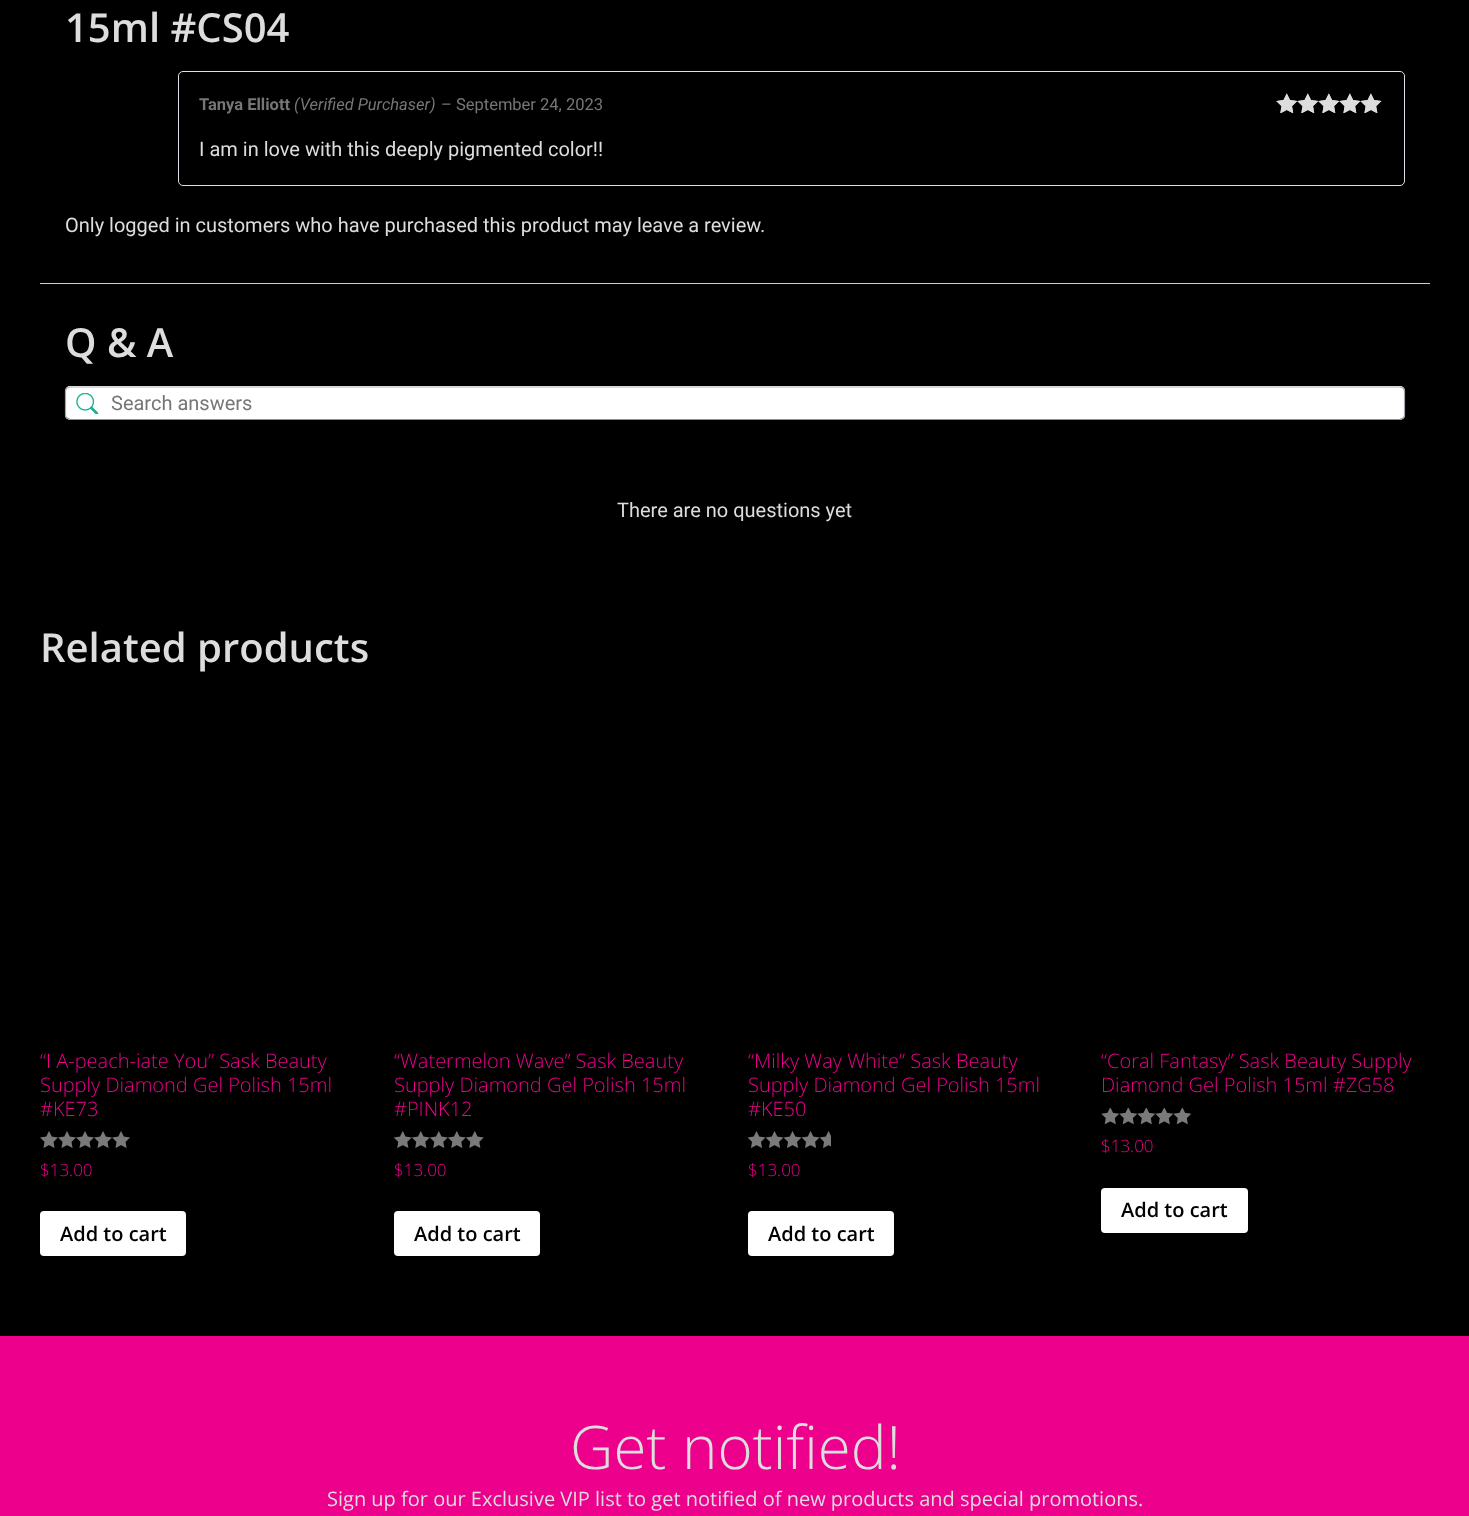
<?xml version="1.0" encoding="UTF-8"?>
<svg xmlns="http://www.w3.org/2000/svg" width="1469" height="1516">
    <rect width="100%" height="100%" fill="#000000"/>
    <text x="65" y="42" font-family="Open Sans" font-size="40" font-weight="600" fill="#DDDDDD">15ml #CS04</text>
    <rect x="178.5" y="71.5" width="1226" height="114" rx="4.5" fill="none" stroke="#E1DDE7"/>
    <text x="199" y="110" font-family="Roboto" font-size="16.5" font-weight="700" fill="#767676">Tanya Elliott</text>
    <text x="294" y="110" font-family="Roboto" font-size="16.5" font-style="italic" fill="#767676">(Verified Purchaser)</text>
    <text x="441" y="110" font-family="Roboto" font-size="16.5" fill="#767676">– September 24, 2023</text>
    <image x="1276" y="93" width="106" height="20" href="img_01.png"/>
    <image x="1276" y="93" width="106" height="20" href="img_02.png"/>
    <text x="199" y="156" font-family="Roboto" font-size="20" fill="#DDDDDD">I am in love with this deeply pigmented color!!</text>
    <text x="65" y="232" font-family="Roboto" font-size="20" fill="#DDDDDD">Only logged in customers who have purchased this product may leave a review.</text>
    <rect x="40" y="283" width="1390" height="1" fill="#D3CED2"/>
    <text x="65" y="357" font-family="Open Sans" font-size="40" font-weight="600" fill="#DDDDDD">Q &amp; A</text>
    <rect x="65" y="386" width="1340" height="34" rx="5" fill="#FFFFFF"/>
    <image x="76" y="393" width="23" height="21" href="img_03.png"/>
    <path d="M 67 388 L 70 387 H 1400 L 1403 388" fill="none" stroke="#ADB1B8" stroke-width="1.2"/>
    <path d="M 1403 388 C 1404 389 1404.5 390 1404.5 391 V 415 C 1404.5 416 1404 417.5 1403 418" fill="none" stroke="#A2A6AC" stroke-width="1.2"/>
    <path d="M 1403 418 L 1400 419.5 H 70 L 67 418" fill="none" stroke="#8D9096" stroke-width="1.2"/>
    <path d="M 67 418 C 66 417.5 65.5 416 65.5 415 V 391 C 65.5 390 66 389 67 388" fill="none" stroke="#A2A6AC" stroke-width="1.2"/>
    <text x="111" y="410" font-family="Roboto" font-size="20" fill="#767676">Search answers</text>
    <text x="617" y="517" font-family="Roboto" font-size="20" fill="#DDDDDD">There are no questions yet</text>
    <text x="40" y="662" font-family="Open Sans" font-size="40" font-weight="600" fill="#DDDDDD">Related products</text>
    <text font-family="Open Sans" font-size="20" font-weight="300" fill="#EC008C">
        <tspan x="40" y="1068">“I A-peach-iate You” Sask Beauty</tspan>
        <tspan x="40" y="1092">Supply Diamond Gel Polish 15ml</tspan>
        <tspan x="40" y="1116">#KE73</tspan>
    </text>
    <image x="40" y="1131" width="90" height="17" href="img_04.png"/>
    <text x="40" y="1176" font-family="Open Sans" font-size="17" font-weight="300" fill="#EC008C">$13.00</text>
    <rect x="40" y="1211" width="146" height="45" rx="4" fill="#FFFFFF"/>
    <text x="60" y="1241" font-family="Open Sans" font-size="20" font-weight="600" fill="#020101">Add to cart</text>
    <text font-family="Open Sans" font-size="20" font-weight="300" fill="#EC008C">
        <tspan x="394" y="1068">“Watermelon Wave” Sask Beauty</tspan>
        <tspan x="394" y="1092">Supply Diamond Gel Polish 15ml</tspan>
        <tspan x="394" y="1116">#PINK12</tspan>
    </text>
    <image x="394" y="1131" width="90" height="17" href="img_05.png"/>
    <text x="394" y="1176" font-family="Open Sans" font-size="17" font-weight="300" fill="#EC008C">$13.00</text>
    <rect x="394" y="1211" width="146" height="45" rx="4" fill="#FFFFFF"/>
    <text x="414" y="1241" font-family="Open Sans" font-size="20" font-weight="600" fill="#020101">Add to cart</text>
    <text font-family="Open Sans" font-size="20" font-weight="300" fill="#EC008C">
        <tspan x="748" y="1068">“Milky Way White” Sask Beauty</tspan>
        <tspan x="748" y="1092">Supply Diamond Gel Polish 15ml</tspan>
        <tspan x="748" y="1116">#KE50</tspan>
    </text>
    <image x="748" y="1131" width="83" height="17" href="img_06.png"/>
    <text x="748" y="1176" font-family="Open Sans" font-size="17" font-weight="300" fill="#EC008C">$13.00</text>
    <rect x="748" y="1211" width="146" height="45" rx="4" fill="#FFFFFF"/>
    <text x="768" y="1241" font-family="Open Sans" font-size="20" font-weight="600" fill="#020101">Add to cart</text>
    <text font-family="Open Sans" font-size="20" font-weight="300" fill="#EC008C">
        <tspan x="1101" y="1068">“Coral Fantasy” Sask Beauty Supply</tspan>
        <tspan x="1101" y="1092">Diamond Gel Polish 15ml #ZG58</tspan>
    </text>
    <image x="1101" y="1108" width="91" height="17" href="img_07.png"/>
    <text x="1101" y="1152" font-family="Open Sans" font-size="17" font-weight="300" fill="#EC008C">$13.00</text>
    <rect x="1101" y="1188" width="147" height="45" rx="4" fill="#FFFFFF"/>
    <text x="1121" y="1217" font-family="Open Sans" font-size="20" font-weight="600" fill="#020101">Add to cart</text>
    <rect x="0" y="1336" width="1469" height="180" fill="#EC008C"/>
    <text x="570" y="1469" font-family="Open Sans" font-size="60" font-weight="300" fill="#DDDDDD">Get notified!</text>
    <text x="327" y="1506" font-family="Open Sans" font-size="20" fill="#DDDDDD">Sign up for our Exclusive VIP list to get notified of new products and special promotions.</text>
</svg>
